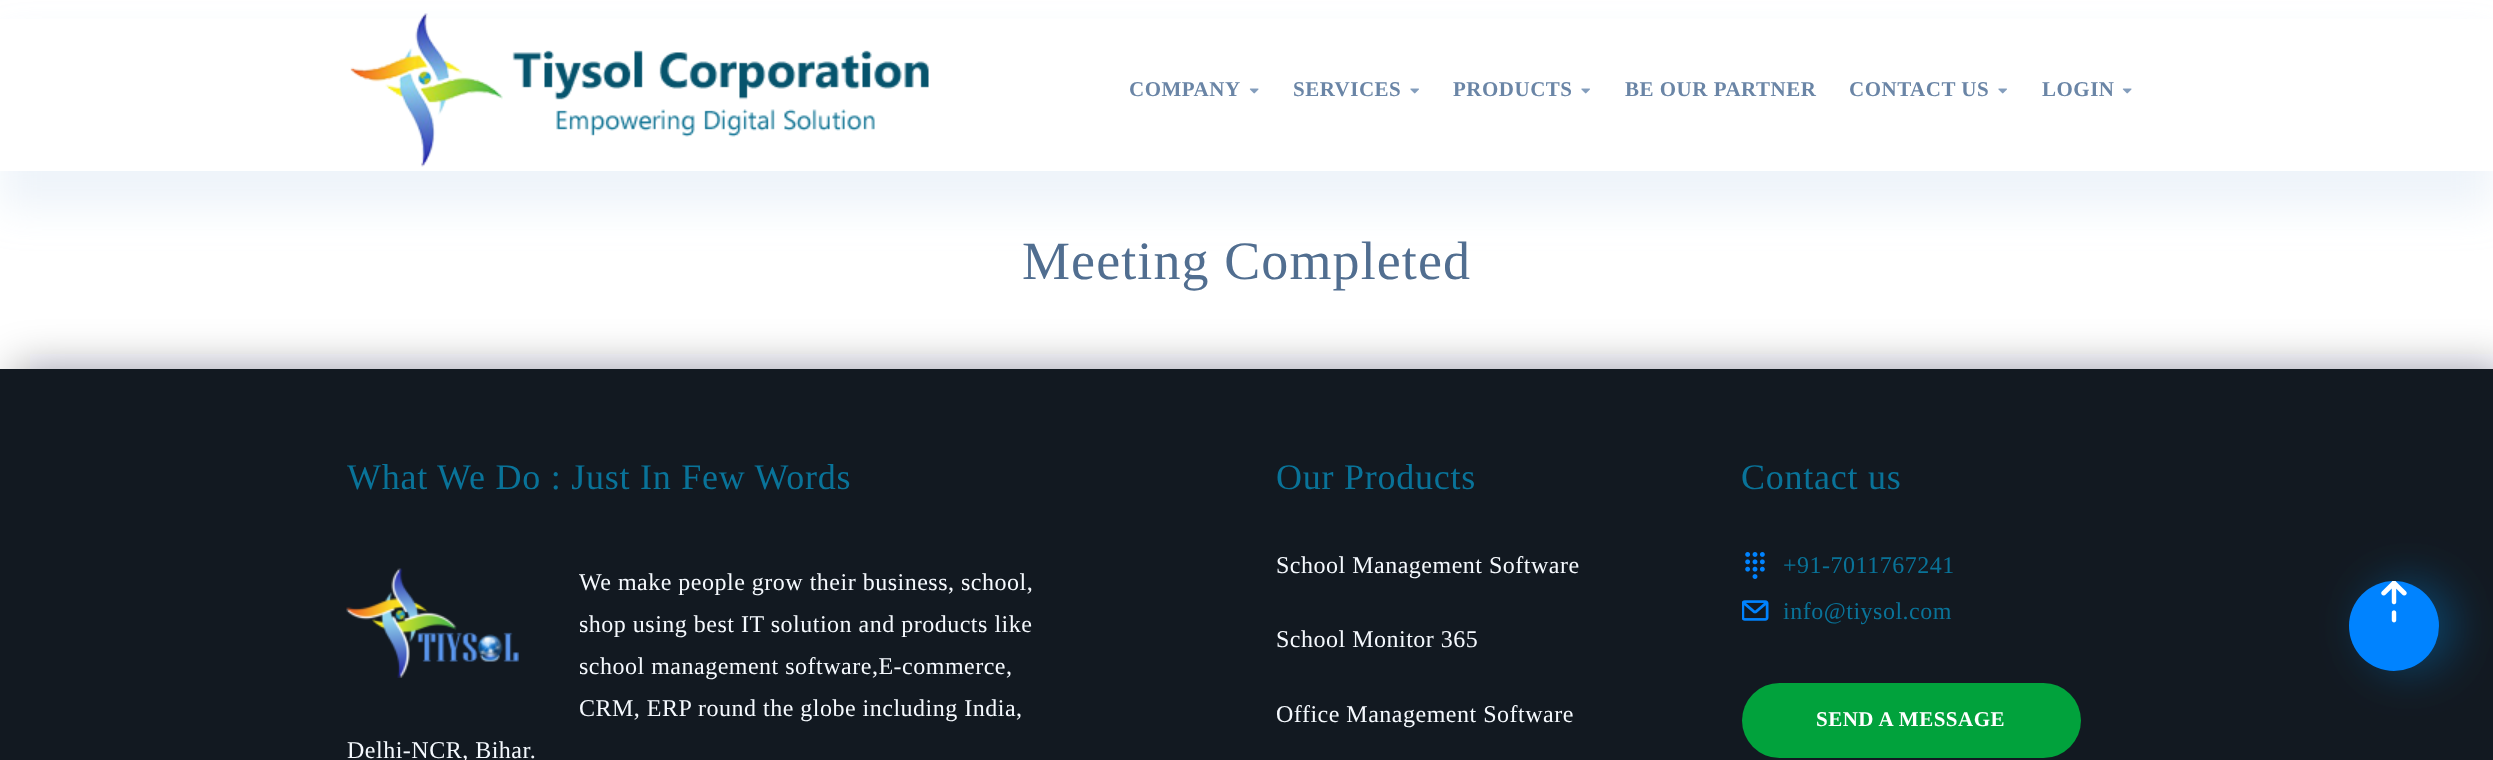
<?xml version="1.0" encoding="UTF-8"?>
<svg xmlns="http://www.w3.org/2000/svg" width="2493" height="760">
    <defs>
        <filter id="blur1" x="-50%" y="-200%" width="200%" height="500%"><feGaussianBlur stdDeviation="19"/></filter>
        <filter id="blur2" x="-50%" y="-200%" width="200%" height="500%"><feGaussianBlur stdDeviation="22.5"/></filter>
    </defs>
    <rect width="100%" height="100%" fill="#FFFFFF"/>
    <rect x="0" y="38" width="2493" height="171" fill="#C8DBEF" fill-opacity="0.3" filter="url(#blur1)"/>
    <rect x="0" y="19" width="2493" height="152" fill="#FFFFFF"/>
    <image x="350" y="13" width="579" height="154" href="img_01.png"/>
    <text x="1129" y="96" font-family="Liberation Serif" font-size="21" font-weight="700" letter-spacing="0.5" fill="#6A85A6">COMPANY</text>
    <image x="1249" y="88" width="10" height="6" href="img_02.png"/>
    <text x="1293" y="96" font-family="Liberation Serif" font-size="21" font-weight="700" letter-spacing="0.5" fill="#6A85A6">SERVICES</text>
    <image x="1410" y="88" width="9" height="6" href="img_03.png"/>
    <text x="1453" y="96" font-family="Liberation Serif" font-size="21" font-weight="700" letter-spacing="0.5" fill="#6A85A6">PRODUCTS</text>
    <image x="1581" y="88" width="9" height="6" href="img_03.png"/>
    <text x="1625" y="96" font-family="Liberation Serif" font-size="21" font-weight="700" letter-spacing="0.5" fill="#6A85A6">BE OUR PARTNER</text>
    <text x="1849" y="96" font-family="Liberation Serif" font-size="21" font-weight="700" letter-spacing="0.5" fill="#6A85A6">CONTACT US</text>
    <image x="1998" y="88" width="9" height="6" href="img_03.png"/>
    <text x="2042" y="96" font-family="Liberation Serif" font-size="21" font-weight="700" letter-spacing="0.5" fill="#6A85A6">LOGIN</text>
    <image x="2122" y="88" width="10" height="6" href="img_02.png"/>
    <text x="1022" y="279" font-family="Liberation Serif" font-size="54" letter-spacing="1.1" fill="#516E90">Meeting Completed</text>
    <rect x="15" y="369" width="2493" height="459" fill="#121921" fill-opacity="0.4" filter="url(#blur2)"/>
    <rect x="0" y="369" width="2493" height="391" fill="#121921"/>
    <text x="347" y="489" font-family="Liberation Serif" font-size="36" letter-spacing="0.75" fill="#097399">What We Do : Just In Few Words</text>
    <image x="346" y="568" width="173" height="110" href="img_04.png"/>
    <text font-family="Liberation Serif" font-size="24" letter-spacing="0.5" fill="#F5F9FE">
        <tspan x="579" y="590">We make people grow their business, school,</tspan>
        <tspan x="579" y="632">shop using best IT solution and products like</tspan>
        <tspan x="579" y="674">school management software,E-commerce,</tspan>
        <tspan x="579" y="716">CRM, ERP round the globe including India,</tspan>
    </text>
    <text x="347" y="758" font-family="Liberation Serif" font-size="24" letter-spacing="0.5" fill="#F5F9FE">Delhi-NCR, Bihar.</text>
    <text x="1276" y="489" font-family="Liberation Serif" font-size="36" letter-spacing="0.75" fill="#097399">Our Products</text>
    <text x="1276" y="573" font-family="Liberation Serif" font-size="24" letter-spacing="0.5" fill="#F5F9FE">School Management Software</text>
    <text x="1276" y="647" font-family="Liberation Serif" font-size="24" letter-spacing="0.5" fill="#F5F9FE">School Monitor 365</text>
    <text x="1276" y="722" font-family="Liberation Serif" font-size="24" letter-spacing="0.5" fill="#F5F9FE">Office Management Software</text>
    <text x="1741" y="489" font-family="Liberation Serif" font-size="36" letter-spacing="0.75" fill="#097399">Contact us</text>
    <image x="1745" y="552" width="20" height="27" href="img_05.png"/>
    <text x="1783" y="573" font-family="Liberation Serif" font-size="24" letter-spacing="0.5" fill="#097399">+91-7011767241</text>
    <image x="1742" y="600" width="27" height="21" href="img_06.png"/>
    <text x="1783" y="619" font-family="Liberation Serif" font-size="24" letter-spacing="0.5" fill="#097399">info@tiysol.com</text>
    <rect x="1742" y="683" width="339" height="75" rx="37.5" fill="#01A23C"/>
    <text x="1816" y="726" font-family="Liberation Serif" font-size="21" font-weight="700" letter-spacing="0.5" fill="#FFFFFF">SEND A MESSAGE</text>
    <rect x="2364" y="581" width="90" height="90" rx="45" fill="#0082D7" fill-opacity="0.4" filter="url(#blur2)"/>
    <circle cx="2394" cy="626" r="45" fill="#0083FF"/>
    <image x="2381" y="581" width="26" height="42" href="img_07.png"/>
</svg>
